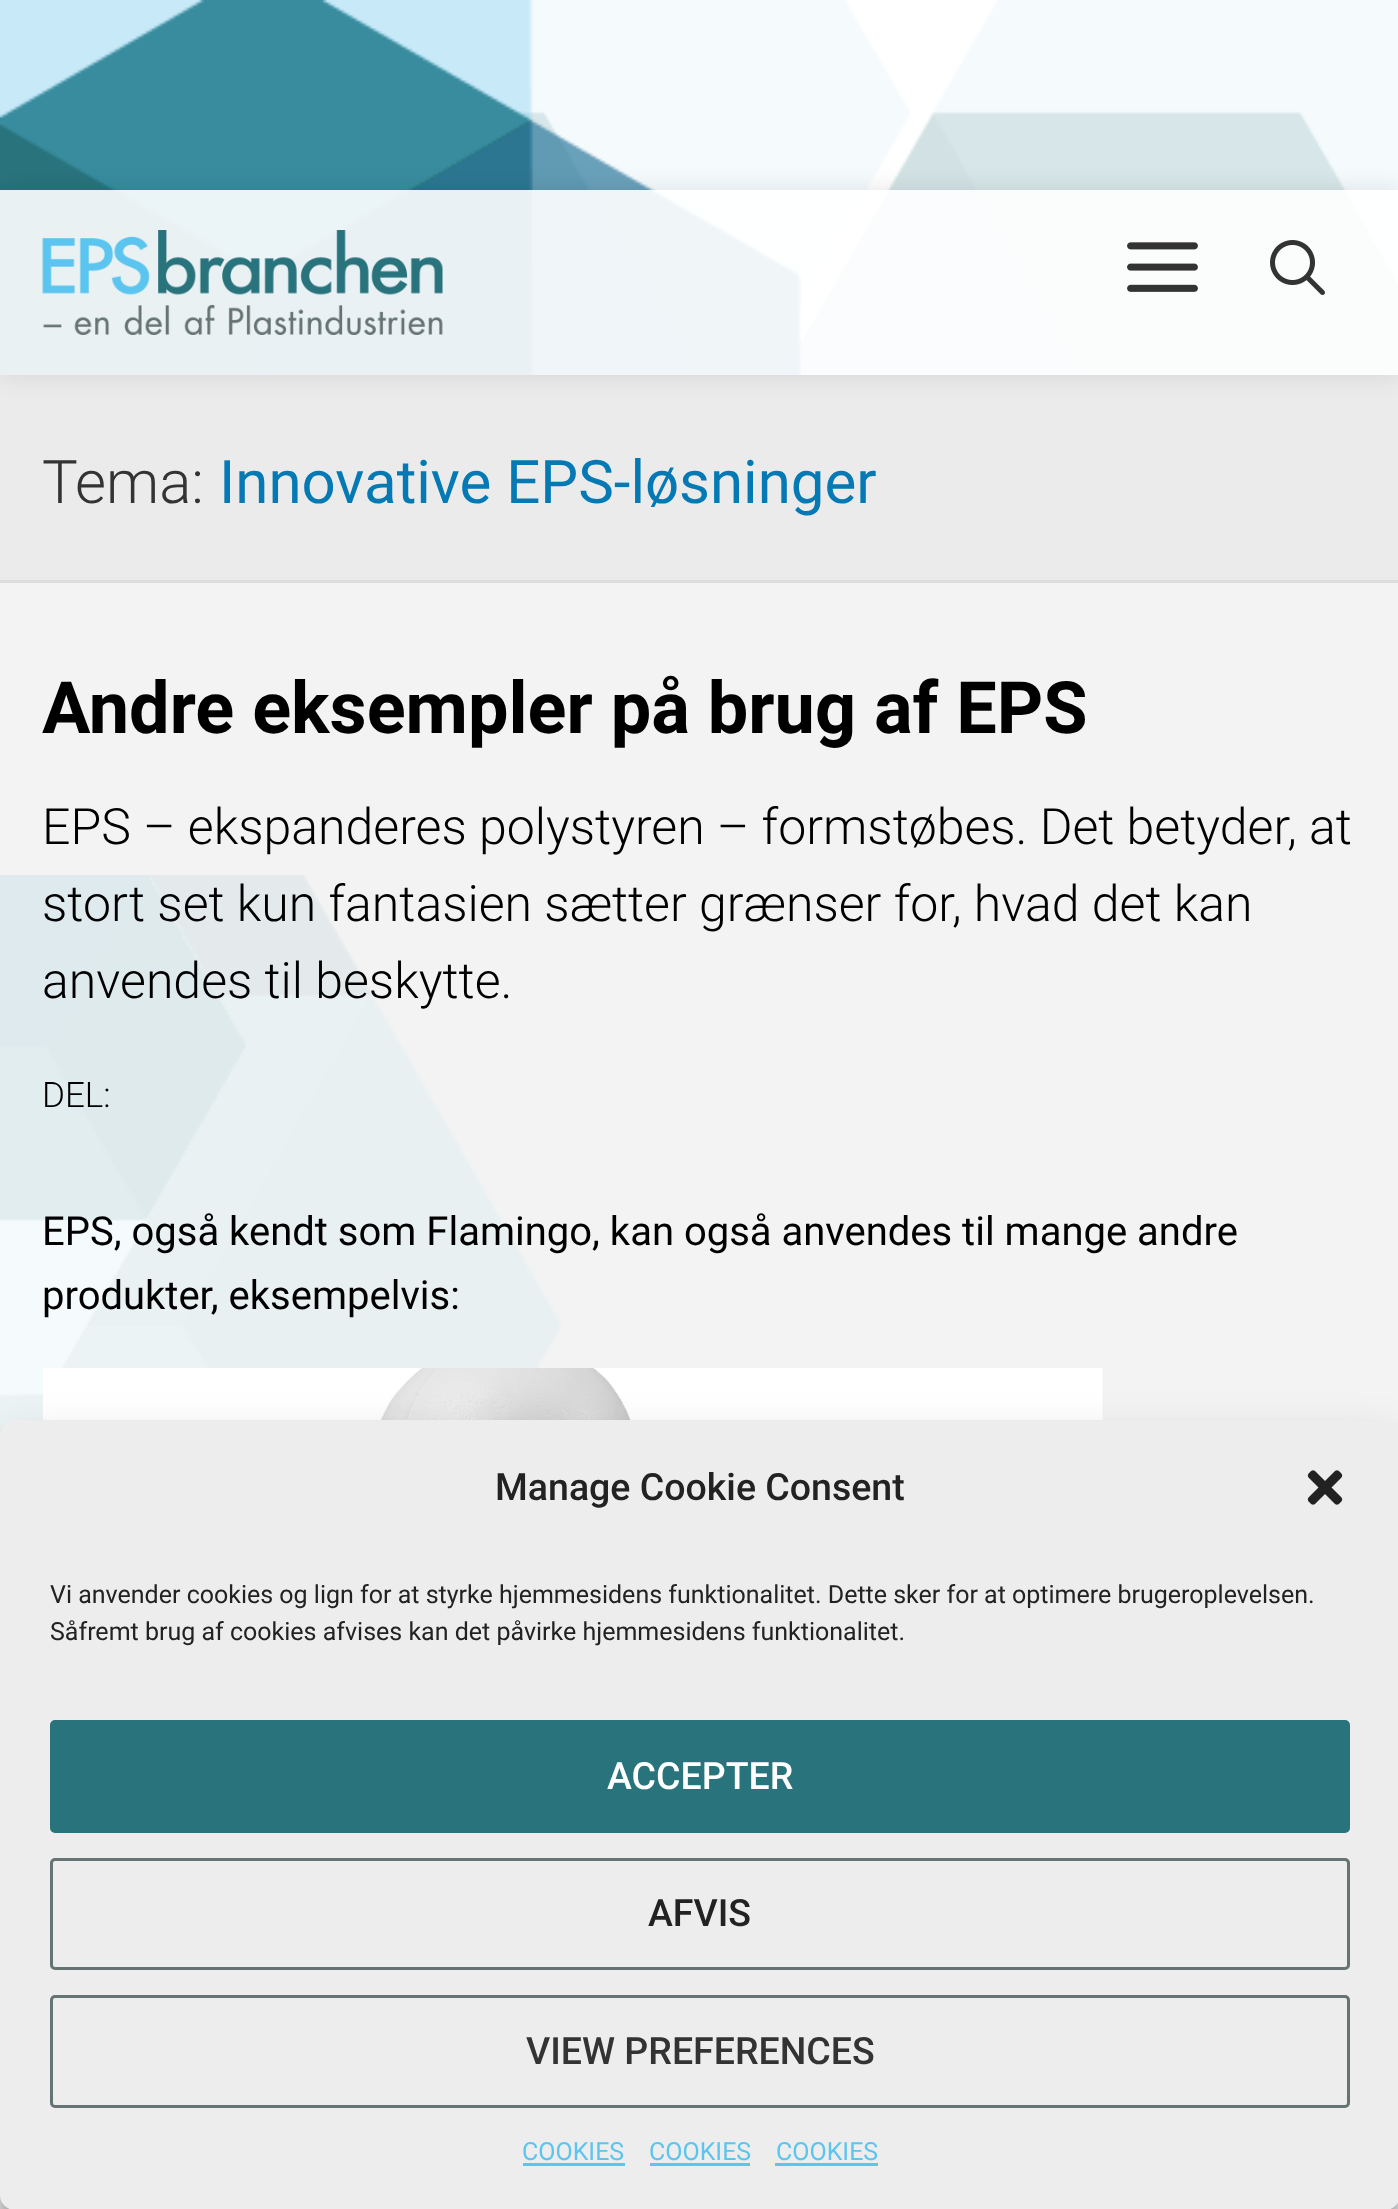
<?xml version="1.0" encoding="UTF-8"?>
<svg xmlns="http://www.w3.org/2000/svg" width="1398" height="2209">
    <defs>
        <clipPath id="clip1"><path d="M 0 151 H 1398 V 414 H 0 Z M 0 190 H 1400 V 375 H 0 Z" clip-rule="evenodd"/></clipPath>
        <filter id="blur1" x="-50%" y="-200%" width="200%" height="500%"><feGaussianBlur stdDeviation="12.5"/></filter>
        <filter id="blur2" x="-50%" y="-200%" width="200%" height="500%"><feGaussianBlur stdDeviation="7.5"/></filter>
        <filter id="blur3" x="-50%" y="-200%" width="200%" height="500%"><feGaussianBlur stdDeviation="25"/></filter>
    </defs>
    <rect width="100%" height="100%" fill="#F3F3F3"/>
    <image x="0" y="0" width="1398" height="375" href="img_01.png"/>
    <rect x="0" y="375" width="1398" height="205" fill="#EBEBEB"/>
    <g clip-path="url(#clip1)">
        <rect x="0" y="190" width="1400" height="185" fill="#000000" fill-opacity="0.1" filter="url(#blur1)"/>
    </g>
    <rect x="0" y="190" width="1398" height="185" fill="#FFFFFF" fill-opacity="0.9"/>
    <image x="42" y="230" width="401" height="105" href="img_02.png"/>
    <image x="1127" y="242" width="71" height="50" href="img_03.png"/>
    <image x="1270" y="240" width="55" height="55" href="img_04.png"/>
    <image x="0" y="875" width="1398" height="1334" href="img_05.png"/>
    <rect x="0" y="580" width="1398" height="3" fill="#DDDDDD"/>
    <text x="42" y="503" font-family="Roboto" font-size="60" font-weight="300" fill="#333333">Tema:</text>
    <text x="219" y="503" font-family="Roboto" font-size="60" fill="#0479B3">Innovative EPS-løsninger</text>
    <text x="42" y="733" font-family="Roboto" font-size="72" font-weight="700" fill="#000000">Andre eksempler på brug af EPS</text>
    <text font-family="Roboto" font-size="50" font-weight="300" fill="#000000">
        <tspan x="42" y="844">EPS – ekspanderes polystyren – formstøbes. Det betyder, at</tspan>
        <tspan x="42" y="921">stort set kun fantasien sætter grænser for, hvad det kan</tspan>
        <tspan x="42" y="998">anvendes til beskytte.</tspan>
    </text>
    <text x="42" y="1107" font-family="Roboto" font-size="35" font-weight="300" fill="#000000">DEL:</text>
    <text font-family="Roboto" font-size="40" fill="#000000">
        <tspan x="42" y="1245">EPS, også kendt som Flamingo, kan også anvendes til mange andre</tspan>
        <tspan x="42" y="1309">produkter, eksempelvis:</tspan>
    </text>
    <image x="43" y="1368" width="1060" height="52" href="img_06.png"/>
    <rect x="0" y="1435" width="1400" height="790" rx="15" fill="#000000" fill-opacity="0.23" filter="url(#blur2)"/>
    <rect x="0" y="1445" width="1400" height="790" rx="15" fill="#000000" fill-opacity="0.19" filter="url(#blur3)"/>
    <rect x="0" y="1420" width="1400" height="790" rx="15" fill="#EDEDED"/>
    <text x="495" y="1500" font-family="Roboto" font-size="37.5" font-weight="500" fill="#222222">Manage Cookie Consent</text>
    <image x="1307" y="1470" width="36" height="35" href="img_07.png"/>
    <text font-family="Roboto" font-size="25" fill="#222222">
        <tspan x="50" y="1603">Vi anvender cookies og lign for at styrke hjemmesidens funktionalitet. Dette sker for at optimere brugeroplevelsen.</tspan>
        <tspan x="50" y="1640">Såfremt brug af cookies afvises kan det påvirke hjemmesidens funktionalitet.</tspan>
    </text>
    <rect x="51.5" y="1721.5" width="1297" height="110" rx="3.5" fill="#29737D" stroke="#29737D" stroke-width="3"/>
    <text x="607" y="1789" font-family="Roboto" font-size="37.5" font-weight="500" fill="#FFFFFF">ACCEPTER</text>
    <rect x="51.5" y="1859.5" width="1297" height="109" rx="3.5" fill="none" stroke="#667373" stroke-width="3"/>
    <text x="648" y="1926" font-family="Roboto" font-size="37.5" font-weight="500" fill="#222222">AFVIS</text>
    <rect x="51.5" y="1996.5" width="1297" height="110" rx="3.5" fill="none" stroke="#667373" stroke-width="3"/>
    <text x="526" y="2064" font-family="Roboto" font-size="37.5" font-weight="500" fill="#333333">VIEW PREFERENCES</text>
    <text x="522" y="2160" font-family="Roboto" font-size="25" fill="#5CC5EF">COOKIES</text>
    <rect x="523" y="2163" width="102" height="3" fill="#5CC5EF"/>
    <text x="649" y="2160" font-family="Roboto" font-size="25" fill="#5CC5EF">COOKIES</text>
    <rect x="650" y="2163" width="100" height="3" fill="#5CC5EF"/>
    <text x="776" y="2160" font-family="Roboto" font-size="25" fill="#5CC5EF">COOKIES</text>
    <rect x="775" y="2163" width="103" height="3" fill="#5CC5EF"/>
</svg>
